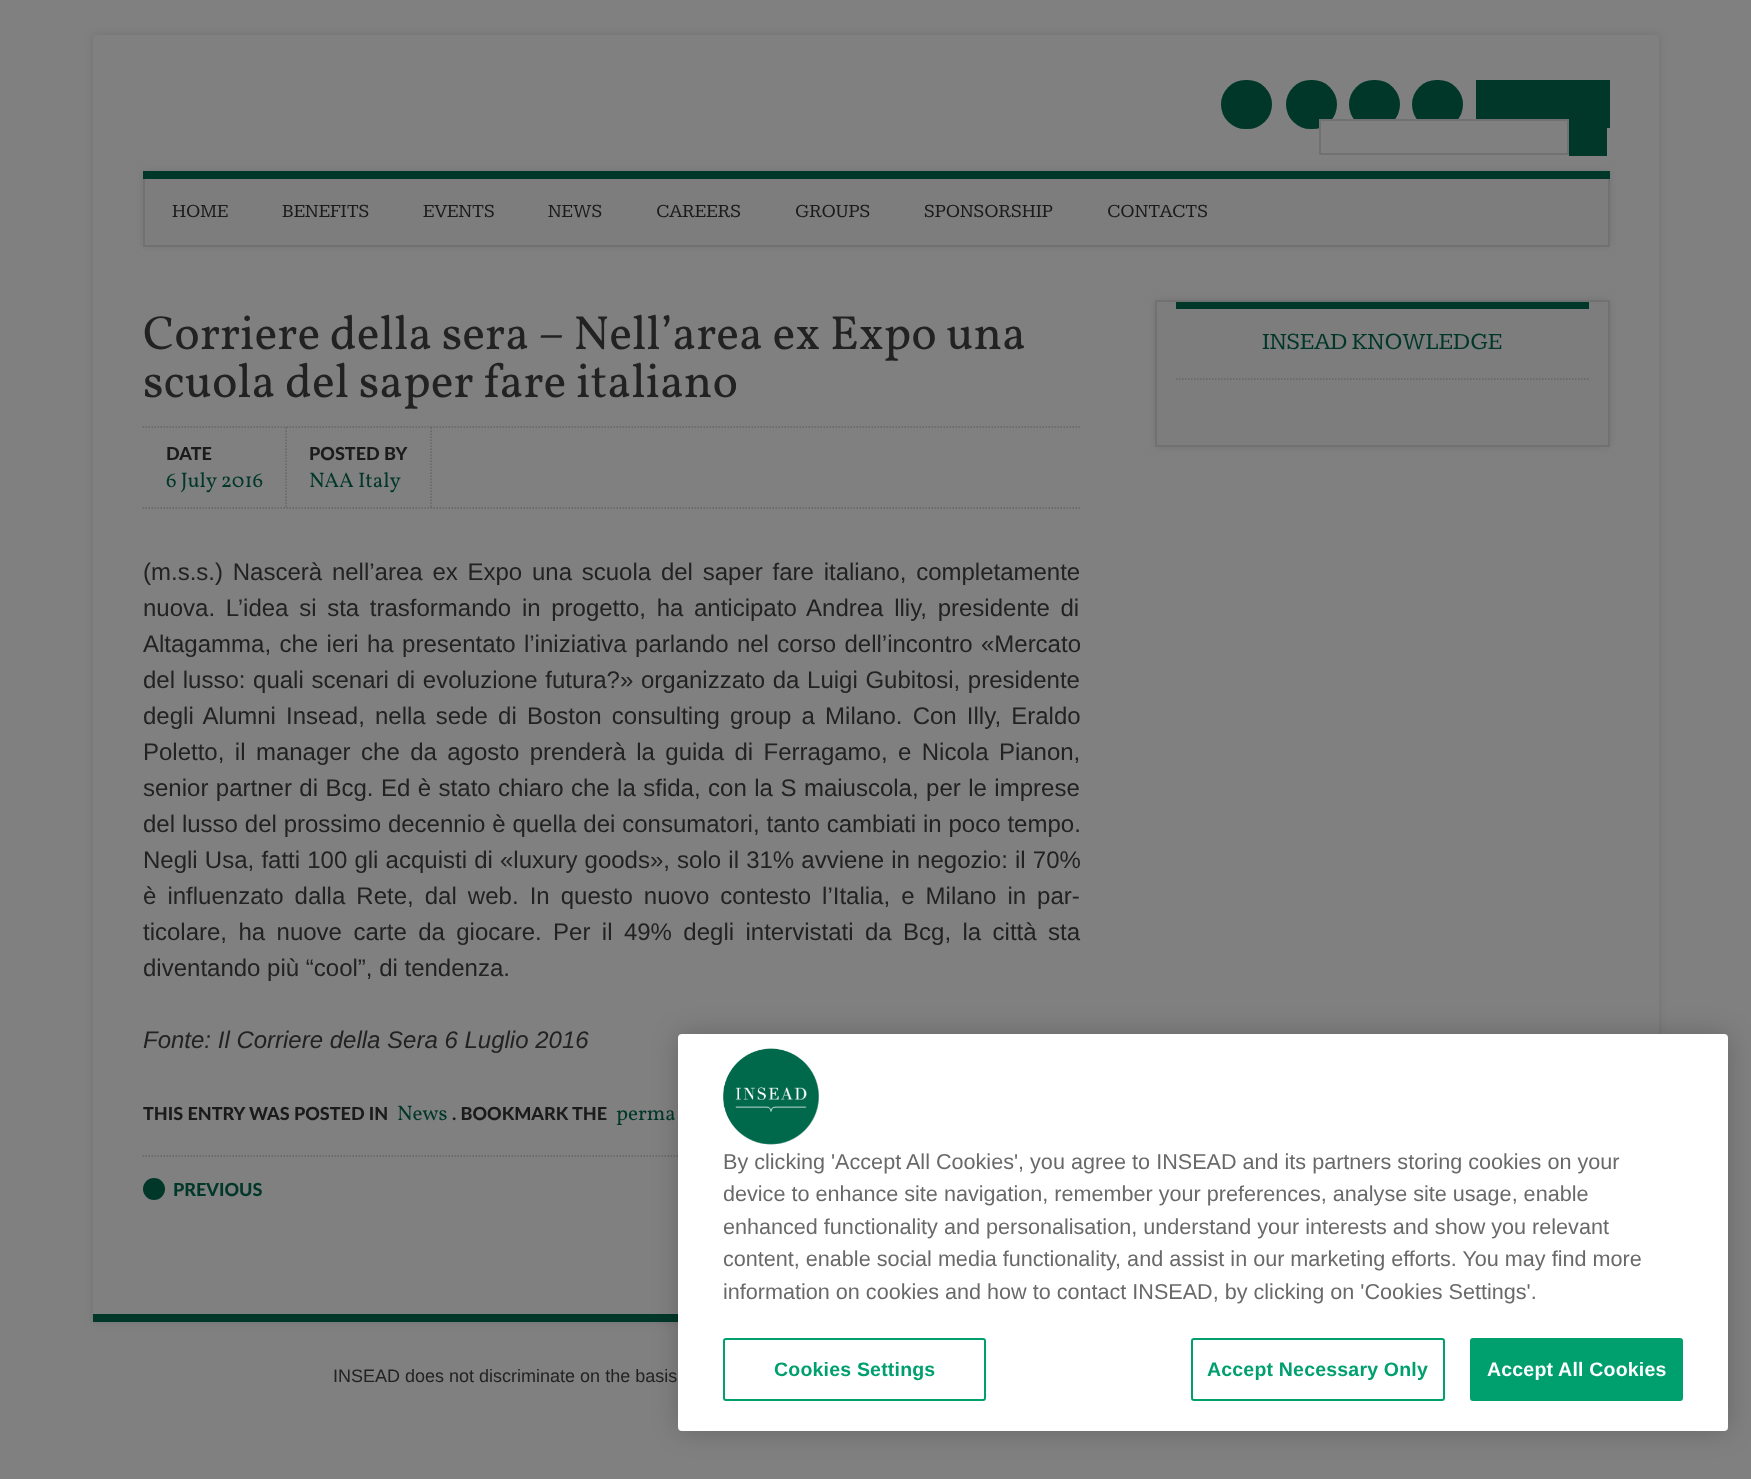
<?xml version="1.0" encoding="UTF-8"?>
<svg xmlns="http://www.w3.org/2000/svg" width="1751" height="1479">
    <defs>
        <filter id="blur1" x="-50%" y="-200%" width="200%" height="500%"><feGaussianBlur stdDeviation="4"/></filter>
        <clipPath id="clip1"><rect x="143" y="1103" width="937" height="22"/></clipPath>
        <filter id="blur2" x="-50%" y="-200%" width="200%" height="500%"><feGaussianBlur stdDeviation="13.5"/></filter>
    </defs>
    <rect width="100%" height="100%" fill="#808080"/>
    <rect x="93" y="35" width="1566" height="1287" fill="#6F6F6F" filter="url(#blur1)"/>
    <rect x="93" y="35" width="1566" height="1279" fill="#808080"/>
    <rect x="93" y="1314" width="585" height="8" fill="#003729"/>
    <rect x="1221" y="80" width="51" height="49" rx="24.5" fill="#003729"/>
    <rect x="1286" y="80" width="51" height="49" rx="24.5" fill="#003729"/>
    <rect x="1349" y="80" width="51" height="49" rx="24.5" fill="#003729"/>
    <rect x="1412" y="80" width="51" height="49" rx="24.5" fill="#003729"/>
    <rect x="1476" y="80" width="134" height="48" fill="#003729"/>
    <rect x="143" y="171" width="1467" height="75" fill="#747474" filter="url(#blur1)"/>
    <rect x="143" y="171" width="1467" height="8" fill="#003729"/>
    <rect x="1321" y="121" width="246" height="8" fill="#808080"/>
    <rect x="1320" y="120" width="248" height="34" fill="none" stroke="#717171" stroke-width="2"/>
    <rect x="1569" y="128" width="38" height="28" fill="#003729"/>
    <rect x="145" y="179" width="1463" height="66" fill="#7D7D7D"/>
    <rect x="1608" y="179" width="2" height="67" fill="#717171"/>
    <rect x="143" y="245" width="1467" height="2" fill="#717171"/>
    <rect x="143" y="179" width="2" height="67" fill="#717171"/>
    <text x="172" y="217" font-family="Kameron" font-size="19.25" fill="#1B1B1B">HOME</text>
    <text x="282" y="217" font-family="Kameron" font-size="19.25" fill="#1B1B1B">BENEFITS</text>
    <text x="423" y="217" font-family="Kameron" font-size="19.25" fill="#1B1B1B">EVENTS</text>
    <text x="548" y="217" font-family="Kameron" font-size="19.25" fill="#1B1B1B">NEWS</text>
    <text x="656" y="217" font-family="Kameron" font-size="19.25" fill="#1B1B1B">CAREERS</text>
    <text x="795" y="217" font-family="Kameron" font-size="19.25" fill="#1B1B1B">GROUPS</text>
    <text x="924" y="217" font-family="Kameron" font-size="19.25" fill="#1B1B1B">SPONSORSHIP</text>
    <text x="1107" y="217" font-family="Kameron" font-size="19.25" fill="#1B1B1B">CONTACTS</text>
    <path d="M 142.5 1156 H 1080" fill="none" stroke="#666666" stroke-width="1.5" stroke-dasharray="1.5 1.5"/>
    <path d="M 142.5 427 H 1080" fill="none" stroke="#666666" stroke-width="1.5" stroke-dasharray="1.5 1.5"/>
    <text font-family="Vollkorn" font-size="48" fill="#222222">
        <tspan x="143" y="349">Corriere della sera – Nell’area ex Expo una</tspan>
        <tspan x="143" y="397">scuola del saper fare italiano</tspan>
    </text>
    <path d="M 142.5 508 H 1080" fill="none" stroke="#666666" stroke-width="1.5" stroke-dasharray="1.5 1.5"/>
    <path d="M 286 427.5 V 507" fill="none" stroke="#666666" stroke-width="1.5" stroke-dasharray="1.5 1.5"/>
    <text x="166" y="460" font-family="Lato" font-size="18" font-weight="900" fill="#1B1B1B">DATE</text>
    <text x="166" y="487" font-family="Vollkorn" font-size="21" fill="#003729">6 July 2016</text>
    <path d="M 431 427.5 V 507" fill="none" stroke="#666666" stroke-width="1.5" stroke-dasharray="1.5 1.5"/>
    <text x="309" y="460" font-family="Lato" font-size="18" font-weight="900" fill="#1B1B1B">POSTED BY</text>
    <text x="309" y="487" font-family="Vollkorn" font-size="21" fill="#003729">NAA Italy</text>
    <text font-family="Liberation Sans" font-size="24" fill="#222222">
        <tspan x="143" y="580" word-spacing="3.1">(m.s.s.) Nascerà nell’area ex Expo una scuola del saper fare italiano, completamente</tspan>
        <tspan x="143" y="616" word-spacing="4">nuova. L’idea si sta trasformando in progetto, ha anticipato Andrea lliy, presidente di</tspan>
        <tspan x="143" y="652" word-spacing="1.75">Altagamma, che ieri ha presentato l’iniziativa parlando nel corso dell’incontro «Mercato</tspan>
        <tspan x="143" y="688" word-spacing="1">del lusso: quali scenari di evoluzione futura?» organizzato da Luigi Gubitosi, presidente</tspan>
        <tspan x="143" y="724" word-spacing="3.5">degli Alumni Insead, nella sede di Boston consulting group a Milano. Con Illy, Eraldo</tspan>
        <tspan x="143" y="760" word-spacing="3.75">Poletto, il manager che da agosto prenderà la guida di Ferragamo, e Nicola Pianon,</tspan>
        <tspan x="143" y="796" word-spacing="0.8">senior partner di Bcg. Ed è stato chiaro che la sfida, con la S maiuscola, per le imprese</tspan>
        <tspan x="143" y="832" word-spacing="0.2">del lusso del prossimo decennio è quella dei consumatori, tanto cambiati in poco tempo.</tspan>
        <tspan x="143" y="868" word-spacing="0.5">Negli Usa, fatti 100 gli acquisti di «luxury goods», solo il 31% avviene in negozio: il 70%</tspan>
        <tspan x="143" y="904" word-spacing="4.4">è influenzato dalla Rete, dal web. In questo nuovo contesto l’Italia, e Milano in par-</tspan>
        <tspan x="143" y="940" word-spacing="4.75">ticolare, ha nuove carte da giocare. Per il 49% degli intervistati da Bcg, la città sta</tspan>
        <tspan x="143" y="976">diventando più “cool”, di tendenza.</tspan>
    </text>
    <text x="143" y="1048" font-family="Liberation Sans" font-size="24" font-style="italic" fill="#222222">Fonte: Il Corriere della Sera 6 Luglio 2016</text>
    <text x="143" y="1120" font-family="Lato" font-size="18" font-weight="900" fill="#1B1B1B">THIS ENTRY WAS POSTED IN</text>
    <text x="397" y="1120" font-family="Vollkorn" font-size="21" fill="#003729">News</text>
    <text x="452" y="1120" font-family="Lato" font-size="18" font-weight="900" fill="#1B1B1B">. BOOKMARK THE</text>
    <g clip-path="url(#clip1)">
        <text x="616" y="1120" font-family="Vollkorn" font-size="21" fill="#003729">perma</text>
    </g>
    <circle cx="154" cy="1189" r="11" fill="#003729"/>
    <text x="173" y="1196" font-family="Lato" font-size="18" font-weight="900" fill="#003729">PREVIOUS</text>
    <rect x="1155" y="300" width="455" height="147" fill="#747474" filter="url(#blur1)"/>
    <rect x="1156" y="301" width="453" height="145" fill="#7D7D7D" stroke="#717171" stroke-width="2"/>
    <rect x="1176" y="302" width="413" height="7" fill="#003729"/>
    <path d="M 1176 379 H 1588.5" fill="none" stroke="#666666" stroke-width="1.5" stroke-dasharray="1.5 1.5"/>
    <text x="1262" y="349" font-family="Kameron" font-size="24" fill="#003729">INSEAD KNOWLEDGE</text>
    <text x="333" y="1382" font-family="Liberation Sans" font-size="18" fill="#222222">INSEAD does not discriminate on the basis</text>
    <rect x="678" y="1034" width="1050" height="397" rx="4" fill="#000000" fill-opacity="0.2" filter="url(#blur2)"/>
    <rect x="678" y="1034" width="1050" height="397" rx="4" fill="#FFFFFF"/>
    <text font-family="Liberation Sans" font-size="21.6" fill="#696969">
        <tspan x="723" y="1169">By clicking 'Accept All Cookies', you agree to INSEAD and its partners storing cookies on your</tspan>
        <tspan x="723" y="1201">device to enhance site navigation, remember your preferences, analyse site usage, enable</tspan>
        <tspan x="723" y="1234">enhanced functionality and personalisation, understand your interests and show you relevant</tspan>
        <tspan x="723" y="1266">content, enable social media functionality, and assist in our marketing efforts. You may find more</tspan>
        <tspan x="723" y="1299">information on cookies and how to contact INSEAD, by clicking on 'Cookies Settings'.</tspan>
    </text>
    <image x="723" y="1048" width="96" height="97" href="img_01.png"/>
    <rect x="724" y="1339" width="261" height="61" rx="2" fill="none" stroke="#009F6E" stroke-width="2"/>
    <text x="774" y="1376" font-family="Liberation Sans" font-size="19.5" font-weight="700" letter-spacing="0.2" fill="#009F6E">Cookies Settings</text>
    <rect x="1192" y="1339" width="252" height="61" rx="2" fill="none" stroke="#009F6E" stroke-width="2"/>
    <text x="1207" y="1376" font-family="Liberation Sans" font-size="19.5" font-weight="700" letter-spacing="0.2" fill="#009F6E">Accept Necessary Only</text>
    <rect x="1471" y="1339" width="211" height="61" rx="2" fill="#009F6E" stroke="#009F6E" stroke-width="2"/>
    <text x="1487" y="1376" font-family="Liberation Sans" font-size="19.5" font-weight="700" letter-spacing="0.2" fill="#FFFFFF">Accept All Cookies</text>
</svg>
